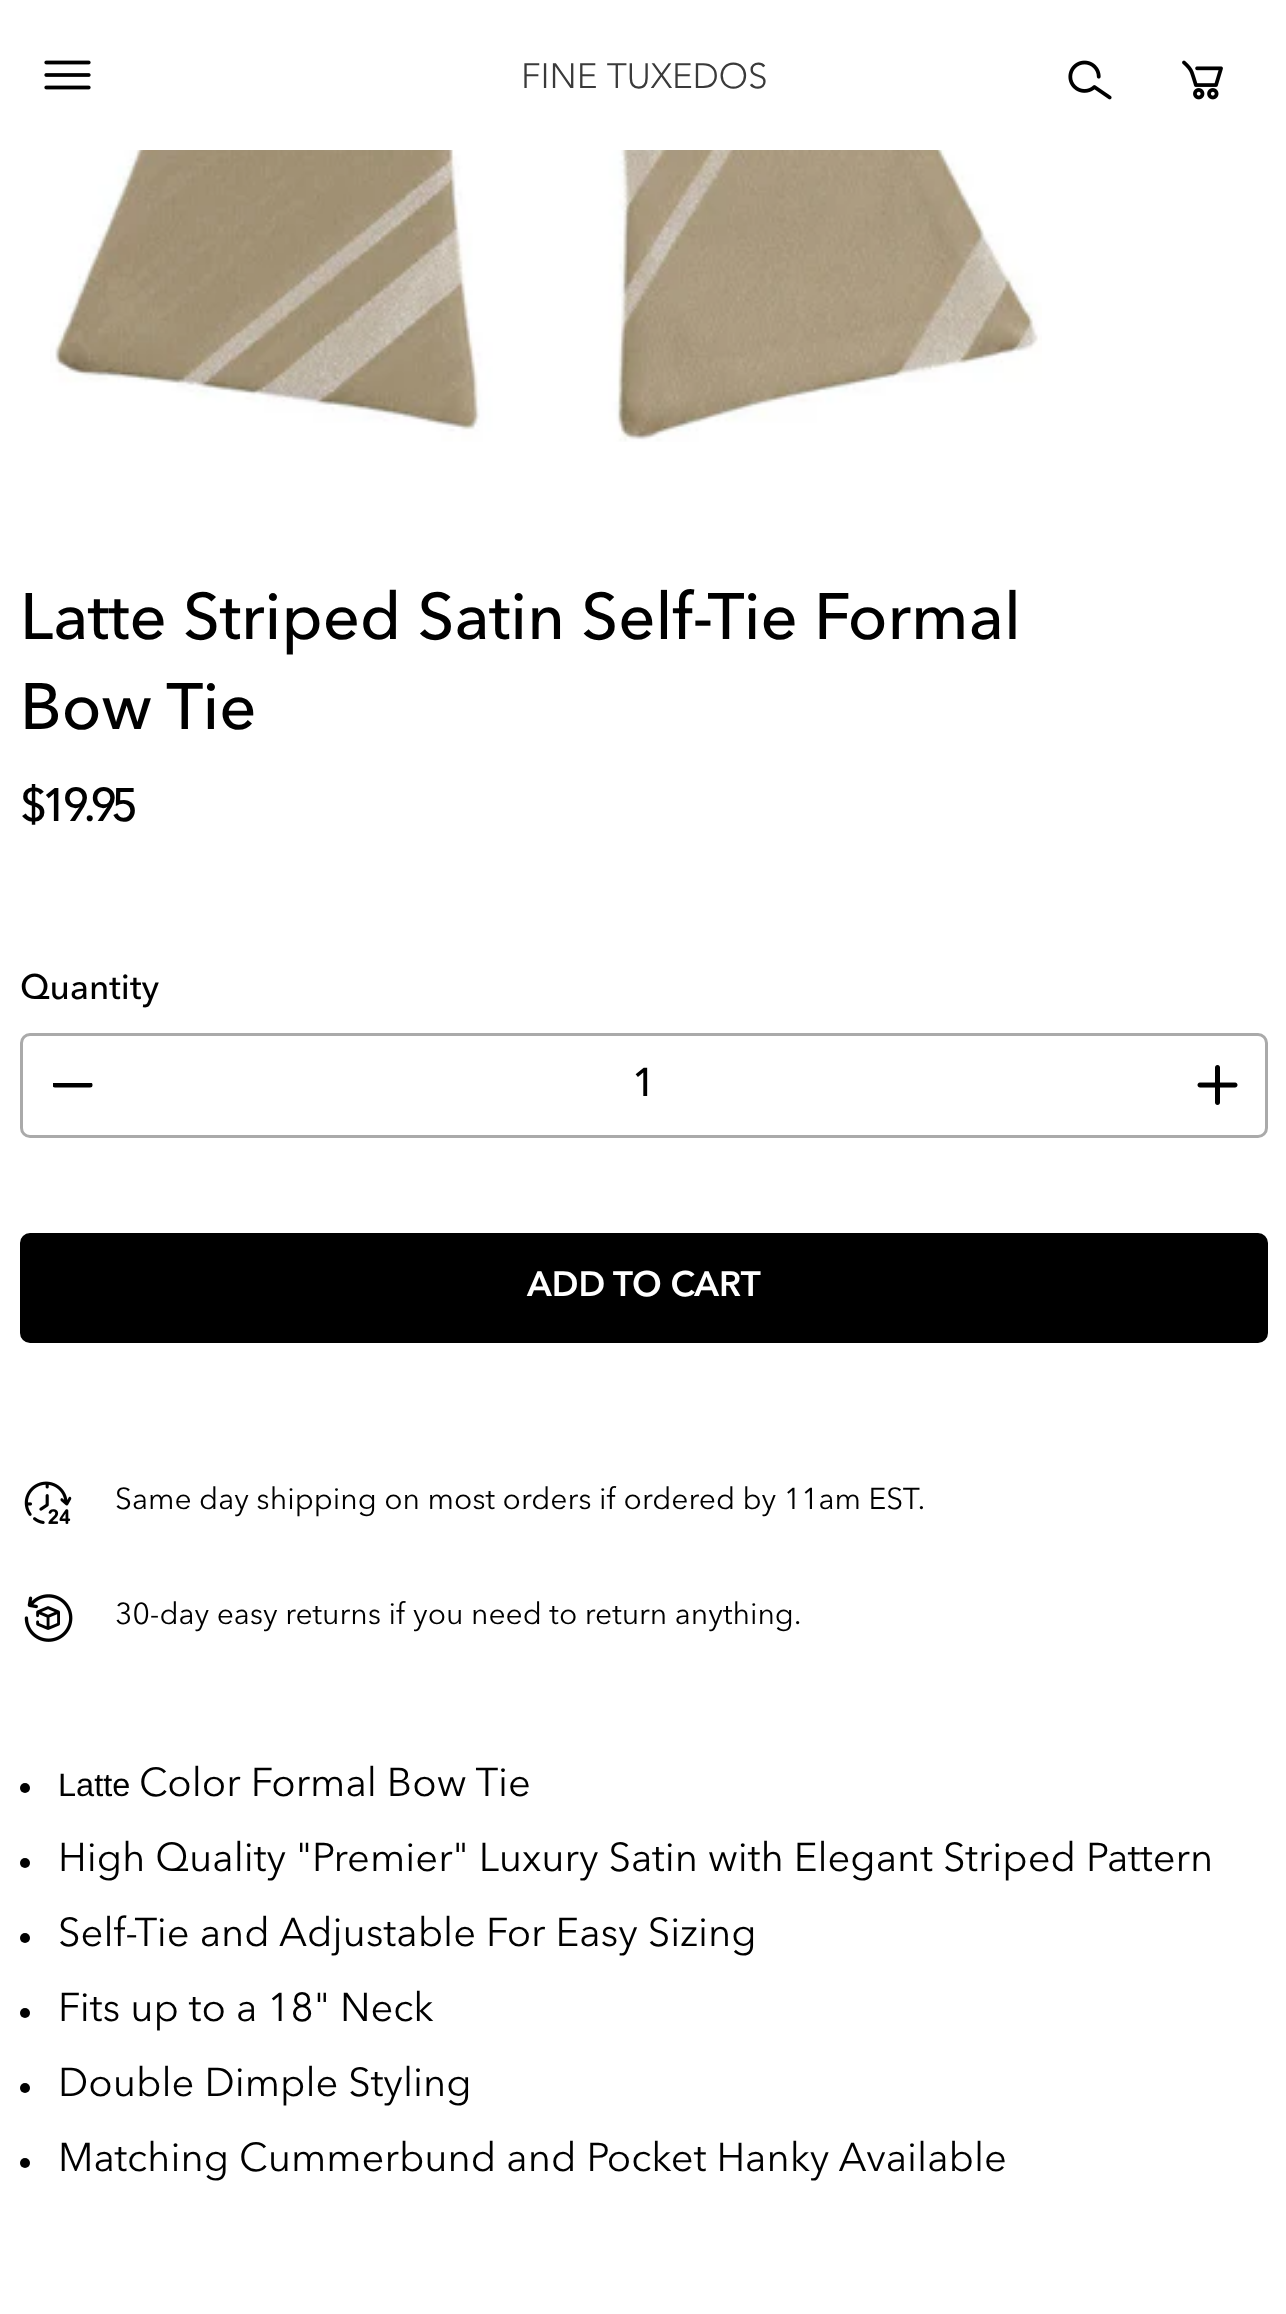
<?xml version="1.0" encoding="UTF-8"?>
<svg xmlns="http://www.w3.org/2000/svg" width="1286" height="2314">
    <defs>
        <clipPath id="clip1"><rect x="53" y="1083" width="40" height="8"/></clipPath>
    </defs>
    <rect width="100%" height="100%" fill="#FFFFFF"/>
    <image x="44" y="60" width="47" height="30" href="img_01.png"/>
    <text x="521" y="88" font-family="Avenir" font-size="35" font-weight="300" fill="#3A3A3A">FINE TUXEDOS</text>
    <image x="1068" y="60" width="44" height="40" href="img_02.png"/>
    <image x="1182" y="60" width="41" height="40" href="img_03.png"/>
    <image x="50" y="150" width="992" height="292" href="img_04.png"/>
    <text font-family="Avenir Next" font-size="65" font-weight="500" fill="#000000">
        <tspan x="20" y="639">Latte Striped Satin Self-Tie Formal</tspan>
        <tspan x="20" y="729">Bow Tie</tspan>
    </text>
    <text x="20" y="821" font-family="Avenir Next" font-size="45" font-weight="700" letter-spacing="-5" fill="#000000">$19.95</text>
    <text x="20" y="999" font-family="Avenir Next" font-size="35" font-weight="500" fill="#000000">Quantity</text>
    <rect x="21.5" y="1034.5" width="1245" height="102" rx="8.5" fill="none" stroke="#AAAAAA" stroke-width="3"/>
    <g clip-path="url(#clip1)">
        <path d="M 55 1085 H 90" fill="none" stroke="#000000" stroke-width="5" stroke-linecap="round" stroke-linejoin="round"/>
    </g>
    <text x="632" y="1096" font-family="Avenir Next" font-size="40" font-weight="500" fill="#000000">1</text>
    <image x="1197" y="1065" width="41" height="40" href="img_05.png"/>
    <rect x="21.5" y="1234.5" width="1245" height="107" rx="8.5" fill="#000000" stroke="#000000" stroke-width="3"/>
    <text x="527" y="1296" font-family="Avenir Next" font-size="35" font-weight="600" fill="#FFFFFF">ADD TO CART</text>
    <image x="24" y="1481" width="48" height="43" href="img_06.png"/>
    <text x="115" y="1509" font-family="Avenir Next" font-size="30" fill="#000000">Same day shipping on most orders if ordered by 11am EST.</text>
    <image x="24" y="1594" width="49" height="48" href="img_07.png"/>
    <text x="115" y="1624" font-family="Avenir Next" font-size="30" fill="#000000">30-day easy returns if you need to return anything.</text>
    <circle cx="25" cy="1788" r="5" fill="#000000"/>
    <text x="58" y="1796" font-family="Liberation Sans" font-size="32.5" fill="#000000">Latte</text>
    <text x="139" y="1796" font-family="Avenir Next" font-size="40" fill="#000000">Color Formal Bow Tie</text>
    <circle cx="25" cy="1863" r="5" fill="#000000"/>
    <text x="58" y="1871" font-family="Avenir Next" font-size="40" fill="#000000">High Quality "Premier" Luxury Satin with Elegant Striped Pattern</text>
    <circle cx="25" cy="1938" r="5" fill="#000000"/>
    <text x="58" y="1946" font-family="Avenir Next" font-size="40" fill="#000000">Self-Tie and Adjustable For Easy Sizing</text>
    <circle cx="25" cy="2013" r="5" fill="#000000"/>
    <text x="58" y="2021" font-family="Avenir Next" font-size="40" fill="#000000">Fits up to a 18" Neck</text>
    <circle cx="25" cy="2088" r="5" fill="#000000"/>
    <text x="58" y="2096" font-family="Avenir Next" font-size="40" fill="#000000">Double Dimple Styling</text>
    <circle cx="25" cy="2163" r="5" fill="#000000"/>
    <text x="58" y="2171" font-family="Avenir Next" font-size="40" fill="#000000">Matching Cummerbund and Pocket Hanky Available</text>
</svg>
